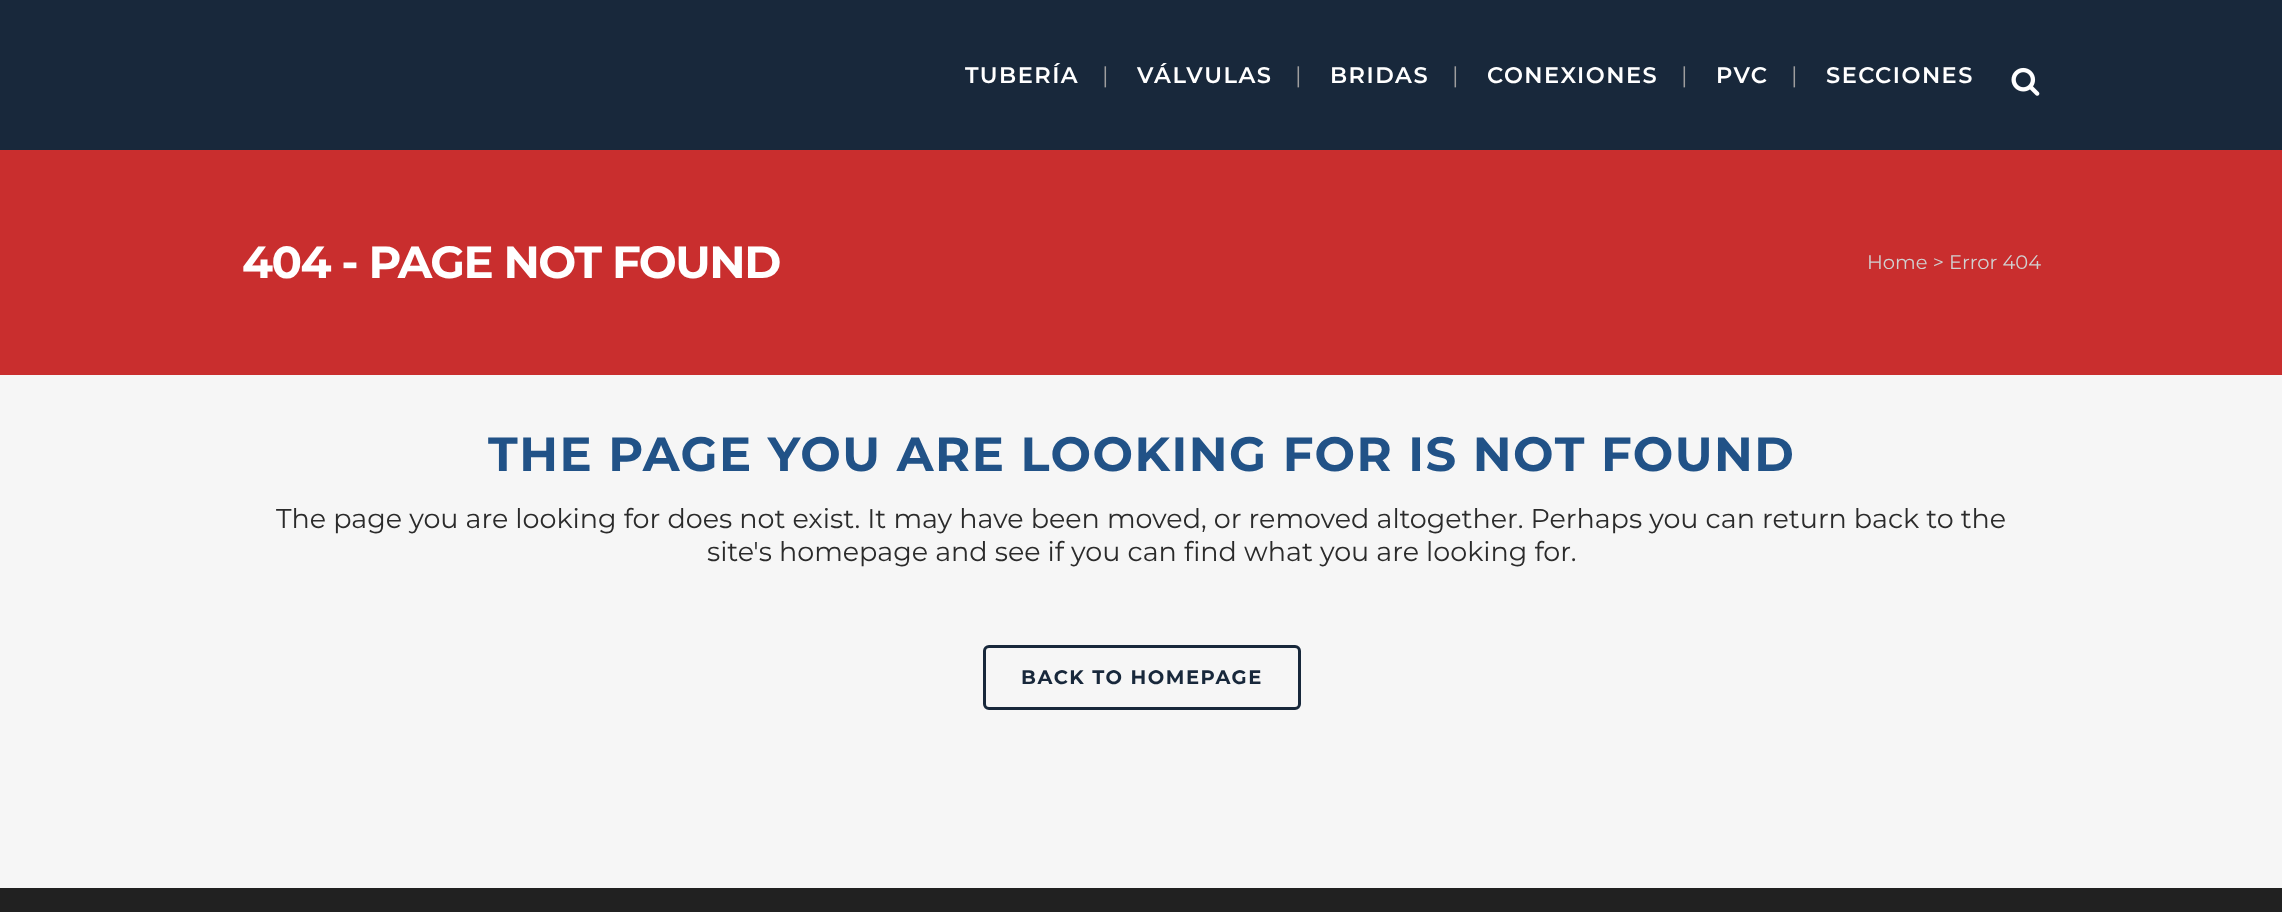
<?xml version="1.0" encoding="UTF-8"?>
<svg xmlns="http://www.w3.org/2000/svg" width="2282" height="912">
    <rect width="100%" height="100%" fill="#F6F6F6"/>
    <rect x="0" y="0" width="2282" height="150" fill="#18283B"/>
    <text x="965" y="83" font-family="Montserrat" font-size="22.5" font-weight="600" letter-spacing="1.5" fill="#FFFFFF">TUBERÍA</text>
    <text x="1102" y="83" font-family="Montserrat" font-size="22.5" fill="#9E9E9E">|</text>
    <text x="1137" y="83" font-family="Montserrat" font-size="22.5" font-weight="600" letter-spacing="1.5" fill="#FFFFFF">VÁLVULAS</text>
    <text x="1295" y="83" font-family="Montserrat" font-size="22.5" fill="#9E9E9E">|</text>
    <text x="1330" y="83" font-family="Montserrat" font-size="22.5" font-weight="600" letter-spacing="1.5" fill="#FFFFFF">BRIDAS</text>
    <text x="1452" y="83" font-family="Montserrat" font-size="22.5" fill="#9E9E9E">|</text>
    <text x="1487" y="83" font-family="Montserrat" font-size="22.5" font-weight="600" letter-spacing="1.5" fill="#FFFFFF">CONEXIONES</text>
    <text x="1681" y="83" font-family="Montserrat" font-size="22.5" fill="#9E9E9E">|</text>
    <text x="1716" y="83" font-family="Montserrat" font-size="22.5" font-weight="600" letter-spacing="1.5" fill="#FFFFFF">PVC</text>
    <text x="1791" y="83" font-family="Montserrat" font-size="22.5" fill="#9E9E9E">|</text>
    <text x="1826" y="83" font-family="Montserrat" font-size="22.5" font-weight="600" letter-spacing="1.5" fill="#FFFFFF">SECCIONES</text>
    <image x="2011" y="67" width="29" height="29" href="img_01.png"/>
    <rect x="0" y="150" width="2282" height="225" fill="#C92E2E"/>
    <text x="242" y="278" font-family="Montserrat" font-size="45" font-weight="700" letter-spacing="-1.5" fill="#FFFFFF">404 - PAGE NOT FOUND</text>
    <text x="1867" y="269" font-family="Montserrat" font-size="19.5" fill="#D1D1D1">Home &gt; Error 404</text>
    <text x="488" y="471" font-family="Montserrat" font-size="48" font-weight="700" letter-spacing="1.5" fill="#215287">THE PAGE YOU ARE LOOKING FOR IS NOT FOUND</text>
    <text x="276" y="528" font-family="Montserrat" font-size="27" fill="#2B2B2B">The page you are looking for does not exist. It may have been moved, or removed altogether. Perhaps you can return back to the</text>
    <text x="707" y="561" font-family="Montserrat" font-size="27" fill="#2B2B2B">site's homepage and see if you can find what you are looking for.</text>
    <rect x="984.5" y="646.5" width="315" height="62" rx="4.5" fill="none" stroke="#18283B" stroke-width="3"/>
    <text x="1021" y="684" font-family="Montserrat" font-size="19.5" font-weight="700" letter-spacing="1.5" fill="#18283B">BACK TO HOMEPAGE</text>
    <rect x="0" y="888" width="2282" height="24" fill="#212121"/>
</svg>
